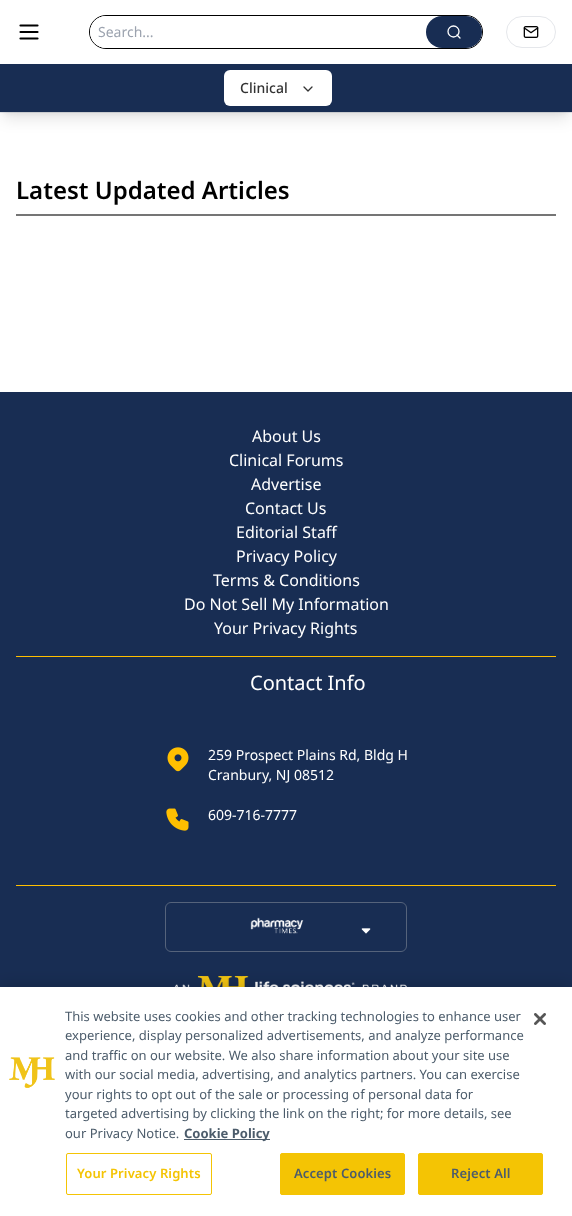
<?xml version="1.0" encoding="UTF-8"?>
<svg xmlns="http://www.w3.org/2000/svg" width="572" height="1216">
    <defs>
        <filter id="blur1" x="-50%" y="-200%" width="200%" height="500%"><feGaussianBlur stdDeviation="3"/></filter>
        <filter id="blur2" x="-50%" y="-200%" width="200%" height="500%"><feGaussianBlur stdDeviation="7.5"/></filter>
        <filter id="blur3" x="-50%" y="-200%" width="200%" height="500%"><feGaussianBlur stdDeviation="9"/></filter>
    </defs>
    <rect width="100%" height="100%" fill="#FFFFFF"/>
    <rect x="0" y="112" width="572" height="1" fill="#E5E7EB"/>
    <path d="M 20.5 25.5 H 37.5 M 20.5 32 H 37.5 M 20.5 38.5 H 37.5" fill="none" stroke="#000000" stroke-width="2.2" stroke-linecap="round" stroke-linejoin="round"/>
    <rect x="89.5" y="15.5" width="393" height="33" rx="16.5" fill="none" stroke="#000000"/>
    <rect x="90" y="16" width="392" height="32" rx="16" fill="#FFFFFF"/>
    <text x="98" y="37" font-family="Noto Sans" font-size="14" fill="#9CA3AF">Search...</text>
    <rect x="426" y="16" width="56" height="32" rx="16" fill="#182D53"/>
    <circle cx="453.5" cy="31.5" r="5.5" fill="none" stroke="#FFFFFF" stroke-width="1.3"/>
    <path d="M 460 38 L 457 35" fill="none" stroke="#FFFFFF" stroke-width="1.3" stroke-linecap="round" stroke-linejoin="round"/>
    <rect x="506.5" y="16.5" width="49" height="31" rx="15.5" fill="none" stroke="#E5E7EB"/>
    <image x="523" y="26" width="16" height="12" href="img_01.png"/>
    <rect x="4" y="72" width="564" height="40" fill="#000000" fill-opacity="0.1" filter="url(#blur1)"/>
    <rect x="3" y="77" width="566" height="42" fill="#000000" fill-opacity="0.1" filter="url(#blur2)"/>
    <rect x="0" y="64" width="572" height="48" fill="#182D53"/>
    <rect x="224" y="70" width="108" height="36" rx="6" fill="#FFFFFF"/>
    <text x="240" y="93" font-family="Noto Sans" font-size="14" font-weight="500" fill="#333333">Clinical</text>
    <path d="M 304 87 L 308 91 L 312 87" fill="none" stroke="#333333" stroke-width="1.3" stroke-linecap="round" stroke-linejoin="round"/>
    <rect x="16" y="214" width="540" height="2" fill="#757575"/>
    <text x="16" y="199" font-family="Noto Sans" font-size="24" font-weight="600" fill="#000000">Latest Updated Articles</text>
    <rect x="0" y="392" width="572" height="595" fill="#182D53"/>
    <text x="252" y="442" font-family="Noto Sans" font-size="16" fill="#FFFFFF">About Us</text>
    <text x="229" y="466" font-family="Noto Sans" font-size="16" fill="#FFFFFF">Clinical Forums</text>
    <text x="251" y="490" font-family="Noto Sans" font-size="16" fill="#FFFFFF">Advertise</text>
    <text x="245" y="514" font-family="Noto Sans" font-size="16" fill="#FFFFFF">Contact Us</text>
    <text font-family="Noto Sans" font-size="16" fill="#FFFFFF">
        <tspan x="236" y="538">Editorial Staff</tspan>
        <tspan x="236" y="562">Privacy Policy</tspan>
    </text>
    <text x="213" y="586" font-family="Noto Sans" font-size="16" fill="#FFFFFF">Terms &amp; Conditions</text>
    <text x="184" y="610" font-family="Noto Sans" font-size="16" fill="#FFFFFF">Do Not Sell My Information</text>
    <text x="214" y="634" font-family="Noto Sans" font-size="16" fill="#FFFFFF">Your Privacy Rights</text>
    <rect x="16" y="656" width="540" height="1" fill="#FFBF00"/>
    <rect x="16" y="885" width="540" height="1" fill="#FFBF00"/>
    <text x="250" y="690" font-family="Noto Sans" font-size="20" fill="#FFFFFF">Contact Info</text>
    <image x="167" y="747" width="22" height="25" href="img_02.png"/>
    <text font-family="Noto Sans" font-size="14" fill="#FFFFFF">
        <tspan x="208" y="760">259 Prospect Plains Rd, Bldg H</tspan>
        <tspan x="208" y="780">Cranbury, NJ 08512</tspan>
    </text>
    <image x="166" y="808" width="23" height="23" href="img_03.png"/>
    <text x="208" y="820" font-family="Noto Sans" font-size="14" fill="#FFFFFF">609-716-7777</text>
    <rect x="165.5" y="902.5" width="241" height="49" rx="5.5" fill="none" stroke="#55637B"/>
    <image x="250" y="917" width="54" height="17" href="img_04.png"/>
    <image x="361" y="928" width="10" height="6" href="img_05.png"/>
    <image x="174" y="976" width="233" height="11" href="img_06.png"/>
    <rect x="0" y="987" width="572" height="229" fill="#000000" fill-opacity="0.2" filter="url(#blur3)"/>
    <rect x="0" y="987" width="572" height="229" fill="#FFFFFF"/>
    <image x="9" y="1057" width="46" height="31" href="img_07.png"/>
    <text font-family="Noto Sans" font-size="13" fill="#4C5C6B">
        <tspan x="65" y="1021">This website uses cookies and other tracking technologies to enhance user</tspan>
        <tspan x="65" y="1040">experience, display personalized advertisements, and analyze performance</tspan>
        <tspan x="65" y="1060">and traffic on our website. We also share information about your site use</tspan>
        <tspan x="65" y="1079">with our social media, advertising, and analytics partners. You can exercise</tspan>
        <tspan x="65" y="1099">your rights to opt out of the sale or processing of personal data for</tspan>
        <tspan x="65" y="1118">targeted advertising by clicking the link on the right; for more details, see</tspan>
        <tspan x="65" y="1138">our Privacy Notice.</tspan>
    </text>
    <rect x="184" y="1139" width="86" height="1" fill="#4C5C6B"/>
    <text x="184" y="1138" font-family="Noto Sans" font-size="13" font-weight="700" fill="#4C5C6B">Cookie Policy</text>
    <rect x="66.5" y="1153.5" width="145" height="41" rx="1.5" fill="none" stroke="#F4C404"/>
    <text x="77" y="1178" font-family="Noto Sans" font-size="13" font-weight="600" letter-spacing="0.1" fill="#F4C404">Your Privacy Rights</text>
    <rect x="280.5" y="1153.5" width="124" height="41" rx="1.5" fill="#F4C404" stroke="#F4C404"/>
    <text x="294" y="1178" font-family="Noto Sans" font-size="13" font-weight="600" letter-spacing="0.1" fill="#4C5C6B">Accept Cookies</text>
    <rect x="418.5" y="1153.5" width="124" height="41" rx="1.5" fill="#F4C404" stroke="#F4C404"/>
    <text x="451" y="1178" font-family="Noto Sans" font-size="13" font-weight="600" letter-spacing="0.1" fill="#4C5C6B">Reject All</text>
    <image x="534" y="1013" width="12" height="12" href="img_08.png"/>
</svg>
